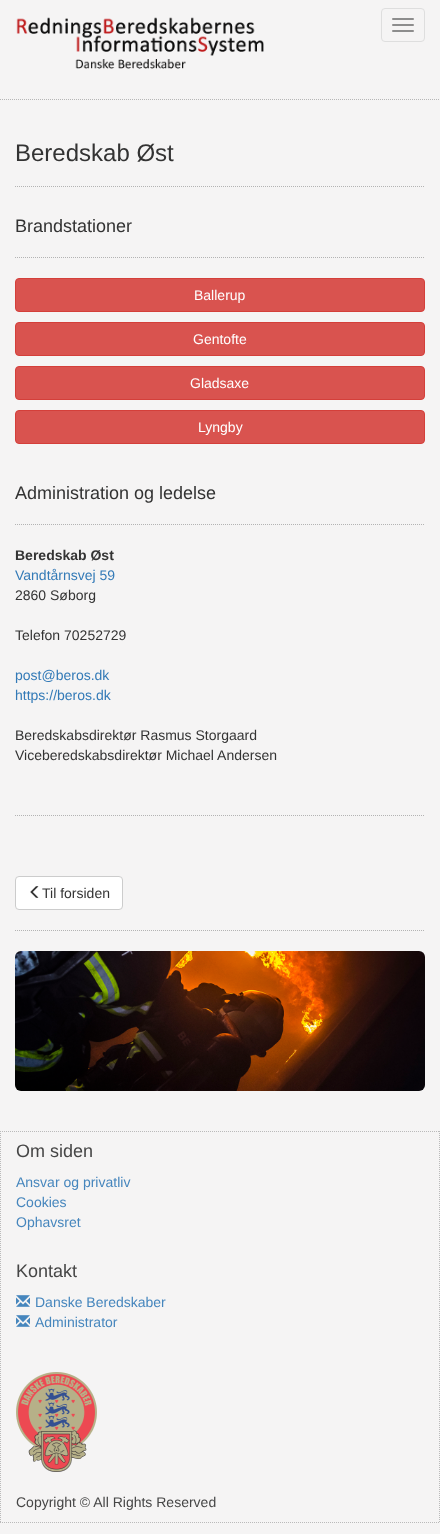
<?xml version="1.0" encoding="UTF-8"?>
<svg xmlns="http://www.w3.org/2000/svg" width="440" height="1534">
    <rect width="100%" height="100%" fill="#F5F4F4"/>
    <path d="M 0 99.5 H 440" fill="none" stroke="#B6B6B6" stroke-dasharray="1 1"/>
    <image x="16" y="17" width="248" height="52" href="img_01.png"/>
    <rect x="381.5" y="8.5" width="43" height="33" rx="3.5" fill="none" stroke="#DEDEDE"/>
    <rect x="392" y="18" width="22" height="2" rx="1" fill="#8D8D8D"/>
    <rect x="392" y="24" width="22" height="2" rx="1" fill="#8D8D8D"/>
    <rect x="392" y="30" width="22" height="2" rx="1" fill="#8D8D8D"/>
    <text x="15" y="161" font-family="Liberation Sans" font-size="24" fill="#333333">Beredskab Øst</text>
    <path d="M 15 186.5 H 425" fill="none" stroke="#B3B3B3" stroke-dasharray="1 1"/>
    <text x="15" y="232" font-family="Liberation Sans" font-size="18" fill="#333333">Brandstationer</text>
    <path d="M 15 257.5 H 425" fill="none" stroke="#B3B3B3" stroke-dasharray="1 1"/>
    <rect x="15.5" y="278.5" width="409" height="33" rx="3.5" fill="#D9534F" stroke="#D43F3A"/>
    <text x="194" y="300" font-family="Liberation Sans" font-size="14" fill="#FFFFFF">Ballerup</text>
    <rect x="15.5" y="322.5" width="409" height="33" rx="3.5" fill="#D9534F" stroke="#D43F3A"/>
    <text x="193" y="344" font-family="Liberation Sans" font-size="14" fill="#FFFFFF">Gentofte</text>
    <rect x="15.5" y="366.5" width="409" height="33" rx="3.5" fill="#D9534F" stroke="#D43F3A"/>
    <text x="190" y="388" font-family="Liberation Sans" font-size="14" fill="#FFFFFF">Gladsaxe</text>
    <rect x="15.5" y="410.5" width="409" height="33" rx="3.5" fill="#D9534F" stroke="#D43F3A"/>
    <text x="198" y="432" font-family="Liberation Sans" font-size="14" fill="#FFFFFF">Lyngby</text>
    <text x="15" y="499" font-family="Liberation Sans" font-size="18" fill="#333333">Administration og ledelse</text>
    <path d="M 15 524.5 H 425" fill="none" stroke="#B3B3B3" stroke-dasharray="1 1"/>
    <text x="15" y="560" font-family="Liberation Sans" font-size="14" font-weight="700" fill="#333333">Beredskab Øst</text>
    <text x="15" y="580" font-family="Liberation Sans" font-size="14" fill="#337AB7">Vandtårnsvej 59</text>
    <text x="15" y="600" font-family="Liberation Sans" font-size="14" fill="#333333">2860 Søborg</text>
    <text x="15" y="640" font-family="Liberation Sans" font-size="14" fill="#333333">Telefon 70252729</text>
    <text font-family="Liberation Sans" font-size="14" fill="#337AB7">
        <tspan x="15" y="680">post@beros.dk</tspan>
        <tspan x="15" y="700">https://beros.dk</tspan>
    </text>
    <text font-family="Liberation Sans" font-size="14" fill="#333333">
        <tspan x="15" y="740">Beredskabsdirektør Rasmus Storgaard</tspan>
        <tspan x="15" y="760">Viceberedskabsdirektør Michael Andersen</tspan>
    </text>
    <path d="M 15 815.5 H 425" fill="none" stroke="#B3B3B3" stroke-dasharray="1 1"/>
    <rect x="15.5" y="876.5" width="107" height="33" rx="3.5" fill="#FFFFFF" stroke="#CCCCCC"/>
    <image x="30" y="886" width="9" height="12" href="img_02.png"/>
    <text x="42" y="898" font-family="Liberation Sans" font-size="14" fill="#333333">Til forsiden</text>
    <path d="M 15 930.5 H 425" fill="none" stroke="#B3B3B3" stroke-dasharray="1 1"/>
    <image x="15" y="951" width="410" height="140" href="img_03.png"/>
    <path d="M 0 1131.5 H 440" fill="none" stroke="#BABABA" stroke-dasharray="1 1"/>
    <path d="M 439.5 1131 V 1523" fill="none" stroke="#BABABA" stroke-dasharray="1 1"/>
    <path d="M 0 1522.5 H 440" fill="none" stroke="#BABABA" stroke-dasharray="1 1"/>
    <path d="M 0.5 1131 V 1523" fill="none" stroke="#BABABA" stroke-dasharray="1 1"/>
    <text x="16" y="1157" font-family="Liberation Sans" font-size="18" fill="#464646">Om siden</text>
    <text font-family="Liberation Sans" font-size="14" fill="#4686BD">
        <tspan x="16" y="1187">Ansvar og privatliv</tspan>
        <tspan x="16" y="1207">Cookies</tspan>
        <tspan x="16" y="1227">Ophavsret</tspan>
    </text>
    <text x="16" y="1277" font-family="Liberation Sans" font-size="18" fill="#464646">Kontakt</text>
    <image x="16" y="1295" width="14" height="12" href="img_04.png"/>
    <text x="35" y="1307" font-family="Liberation Sans" font-size="14" fill="#4686BD">Danske Beredskaber</text>
    <image x="16" y="1315" width="14" height="12" href="img_04.png"/>
    <text x="35" y="1327" font-family="Liberation Sans" font-size="14" fill="#4686BD">Administrator</text>
    <image x="16" y="1372" width="81" height="100" href="img_05.png"/>
    <text x="16" y="1507" font-family="Liberation Sans" font-size="14" fill="#464646">Copyright © All Rights Reserved</text>
</svg>
